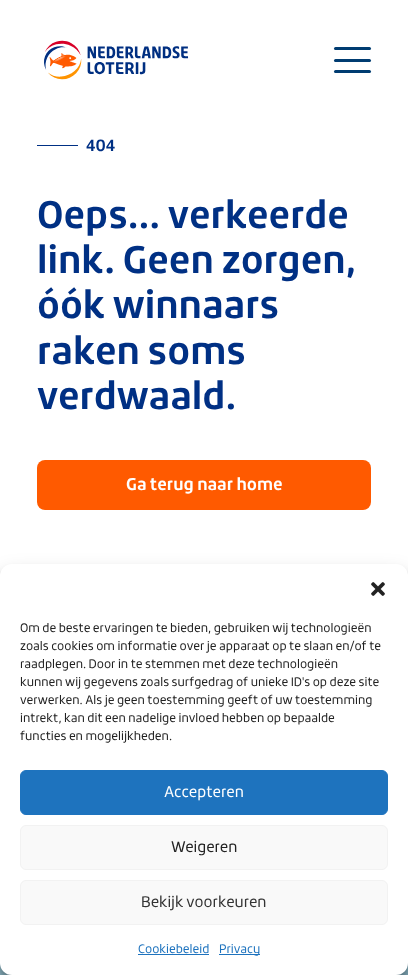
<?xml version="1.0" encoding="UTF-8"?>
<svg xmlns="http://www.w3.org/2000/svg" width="408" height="975">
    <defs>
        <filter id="blur1" x="-50%" y="-200%" width="200%" height="500%"><feGaussianBlur stdDeviation="3"/></filter>
        <filter id="blur2" x="-50%" y="-200%" width="200%" height="500%"><feGaussianBlur stdDeviation="10"/></filter>
    </defs>
    <rect width="100%" height="100%" fill="#FFFFFF"/>
    <image x="44" y="40" width="145" height="40" href="img_01.png"/>
    <rect x="334" y="47" width="37" height="3" rx="1.5" fill="#003C71"/>
    <rect x="334" y="59" width="37" height="3" rx="1.5" fill="#003C71"/>
    <rect x="334" y="70" width="37" height="3" rx="1.5" fill="#003C71"/>
    <rect x="37" y="145" width="41" height="1" fill="#003084"/>
    <text x="86" y="151" font-family="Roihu" font-size="16" font-weight="700" fill="#003084">404</text>
    <text font-family="Roihu" font-size="37.75" font-weight="700" fill="#003084">
        <tspan x="37" y="228">Oeps… verkeerde</tspan>
        <tspan x="37" y="273">link. Geen zorgen,</tspan>
        <tspan x="37" y="318">óók winnaars</tspan>
        <tspan x="37" y="364">raken soms</tspan>
        <tspan x="37" y="409">verdwaald.</tspan>
    </text>
    <rect x="37" y="460" width="334" height="50" rx="8" fill="#FF5A00"/>
    <text x="126" y="490" font-family="Roihu" font-size="16.75" font-weight="700" fill="#FFFFFF">Ga terug naar home</text>
    <image x="0" y="963" width="408" height="12" href="img_02.png"/>
    <rect x="0" y="570" width="408" height="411" rx="12" fill="#000000" fill-opacity="0.23" filter="url(#blur1)"/>
    <rect x="0" y="574" width="408" height="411" rx="12" fill="#000000" fill-opacity="0.19" filter="url(#blur2)"/>
    <rect x="0" y="564" width="408" height="411" rx="12" fill="#FFFFFF"/>
    <image x="371" y="582" width="14" height="14" href="img_03.png"/>
    <text font-family="Roihu" font-size="12" fill="#222222">
        <tspan x="20" y="632">Om de beste ervaringen te bieden, gebruiken wij technologieën</tspan>
        <tspan x="20" y="650">zoals cookies om informatie over je apparaat op te slaan en/of te</tspan>
        <tspan x="20" y="668">raadplegen. Door in te stemmen met deze technologieën</tspan>
        <tspan x="20" y="686">kunnen wij gegevens zoals surfgedrag of unieke ID's op deze site</tspan>
        <tspan x="20" y="704">verwerken. Als je geen toestemming geeft of uw toestemming</tspan>
        <tspan x="20" y="722">intrekt, kan dit een nadelige invloed hebben op bepaalde</tspan>
        <tspan x="20" y="740">functies en mogelijkheden.</tspan>
    </text>
    <rect x="20.5" y="770.5" width="367" height="44" rx="5.5" fill="#1E73BE" stroke="#1E73BE"/>
    <text x="164" y="797" font-family="Roihu" font-size="15" fill="#FFFFFF">Accepteren</text>
    <rect x="20.5" y="825.5" width="367" height="44" rx="5.5" fill="#F9F9F9" stroke="#F2F2F2"/>
    <text x="171" y="852" font-family="Roihu" font-size="15" fill="#222222">Weigeren</text>
    <rect x="20.5" y="880.5" width="367" height="44" rx="5.5" fill="#F9F9F9" stroke="#F2F2F2"/>
    <text x="141" y="907" font-family="Roihu" font-size="15" fill="#333333">Bekijk voorkeuren</text>
    <text x="138" y="953" font-family="Roihu" font-size="12" fill="#1E73BE">Cookiebeleid</text>
    <rect x="138" y="954" width="71" height="1" fill="#1E73BE"/>
    <rect x="219" y="954" width="41" height="1" fill="#1E73BE"/>
    <text x="219" y="953" font-family="Roihu" font-size="12" fill="#1E73BE">Privacy</text>
</svg>
